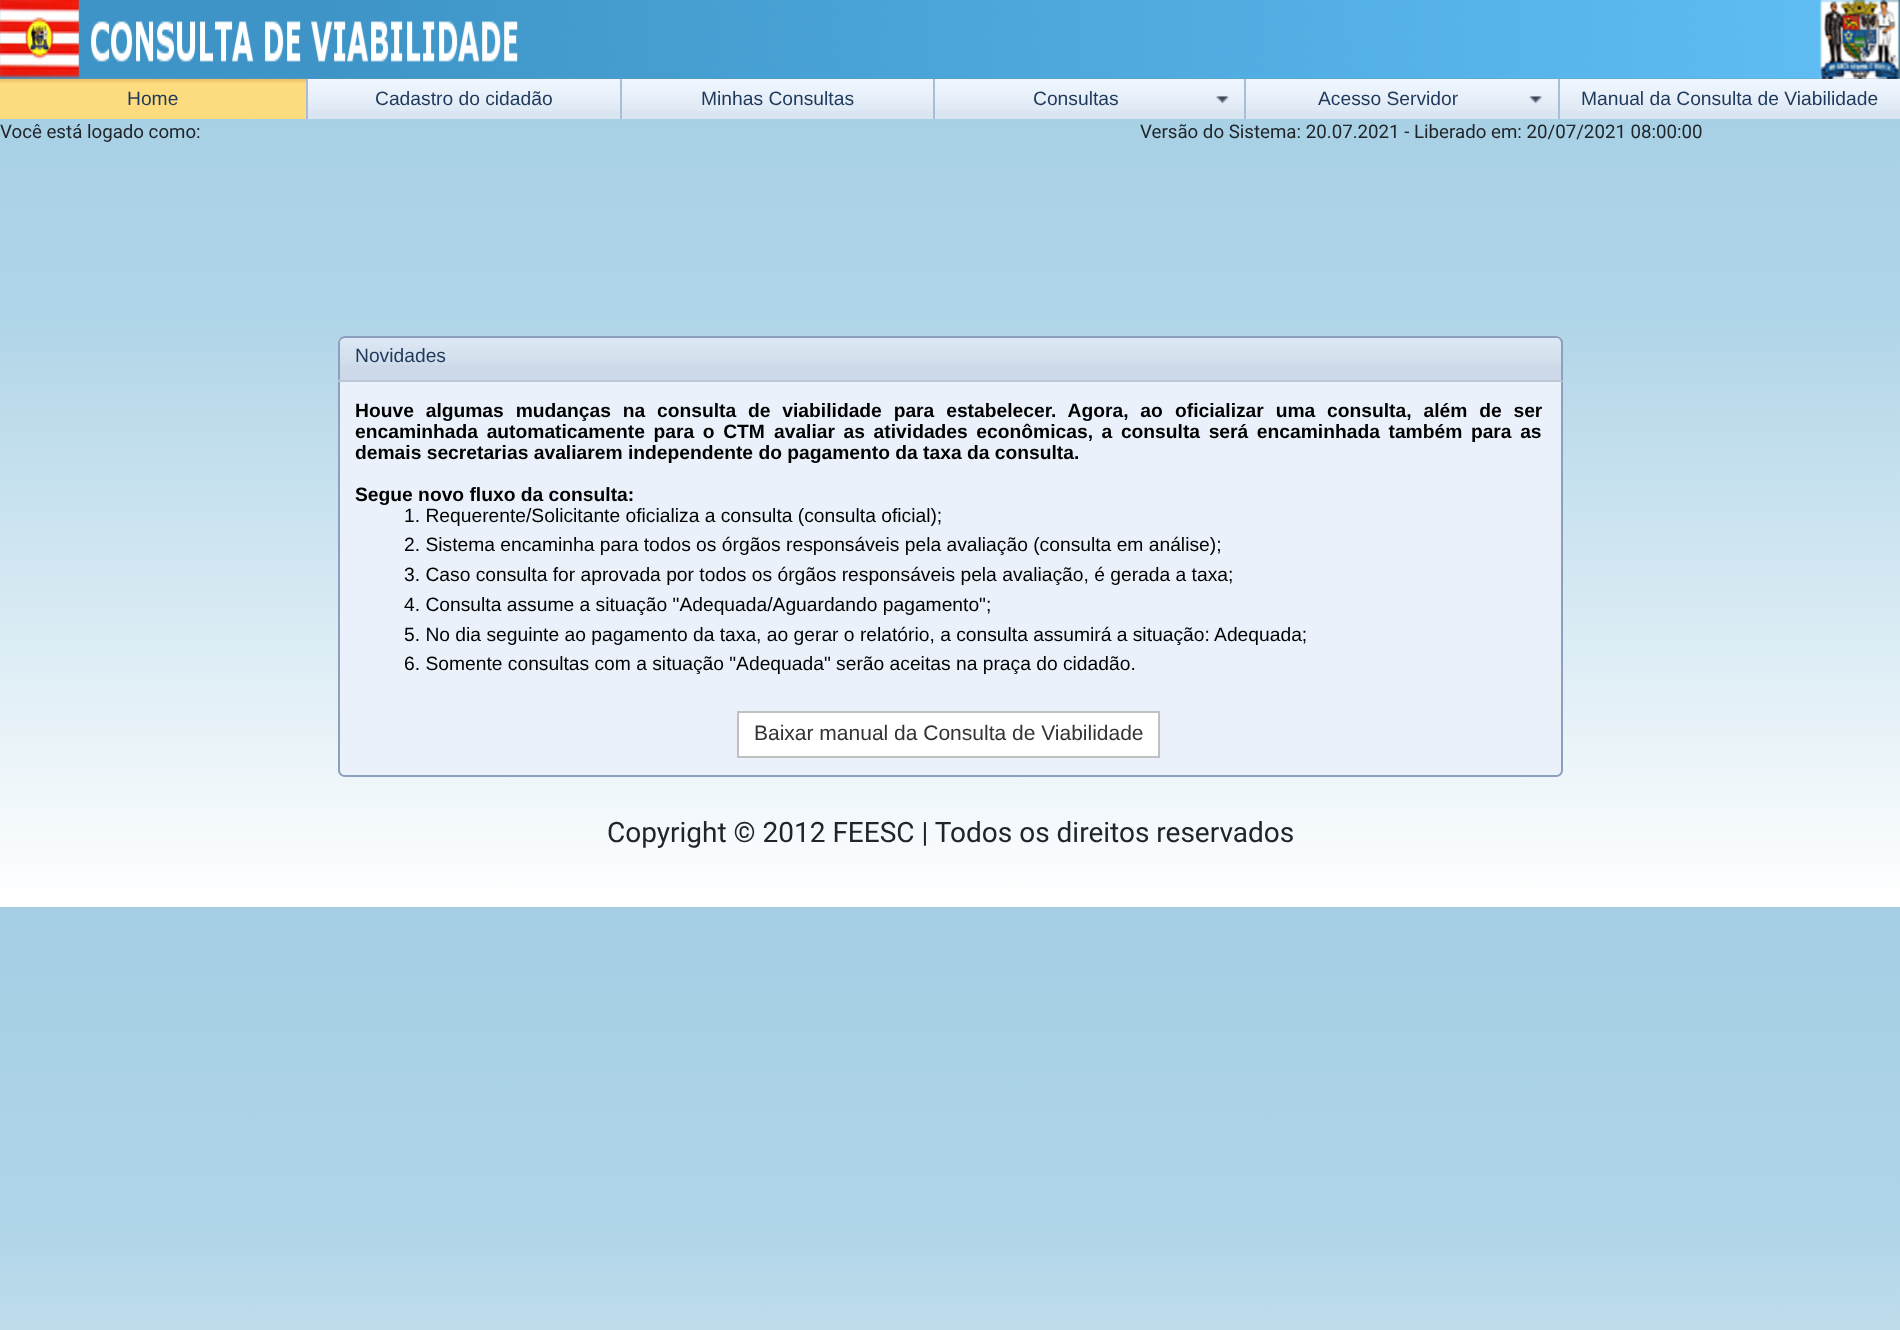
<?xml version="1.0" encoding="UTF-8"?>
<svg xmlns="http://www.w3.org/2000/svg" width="1900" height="1330">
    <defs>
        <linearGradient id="g1" gradientUnits="userSpaceOnUse" x1="950" y1="0" x2="950" y2="907"><stop offset="0" stop-color="#A4CEE4"/><stop offset="0.35" stop-color="#B0D5E8"/><stop offset="1" stop-color="#FFFFFF"/></linearGradient>
        <linearGradient id="g2" gradientUnits="userSpaceOnUse" x1="950" y1="907" x2="950" y2="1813"><stop offset="0" stop-color="#A4CEE4"/><stop offset="0.35" stop-color="#B0D5E8"/><stop offset="1" stop-color="#FFFFFF"/></linearGradient>
    </defs>
    <rect width="100%" height="100%" fill="#FFFFFF"/>
    <rect x="0" y="119" width="1900" height="769" fill="url(#g1)"/>
    <rect x="0" y="907" width="1900" height="423" fill="url(#g2)"/>
    <rect x="0" y="0" width="1900" height="79" fill="#467591"/>
    <image x="0" y="78" width="1900" height="33" href="img_02.png"/>
    <rect x="0" y="115" width="306" height="4" fill="#FDDC7F"/>
    <image x="0" y="78" width="307" height="38" href="img_03.png"/>
    <image x="0" y="0" width="1900" height="79" href="img_01.png"/>
    <rect x="308" y="111" width="1592" height="8" fill="#DAE5F2"/>
    <text x="127" y="105" font-family="Liberation Sans" font-size="19.25" fill="#1E395B">Home</text>
    <rect x="306" y="79" width="2" height="40" fill="#A9BDD8"/>
    <text x="375" y="105" font-family="Liberation Sans" font-size="19.25" fill="#1E395B">Cadastro do cidadão</text>
    <rect x="620" y="79" width="2" height="40" fill="#A9BDD8"/>
    <text x="701" y="105" font-family="Liberation Sans" font-size="19.25" fill="#1E395B">Minhas Consultas</text>
    <rect x="933" y="79" width="2" height="40" fill="#A9BDD8"/>
    <text x="1033" y="105" font-family="Liberation Sans" font-size="19.25" fill="#1E395B">Consultas</text>
    <image x="1216" y="96" width="13" height="8" href="img_04.png"/>
    <rect x="1244" y="79" width="2" height="40" fill="#A9BDD8"/>
    <text x="1318" y="105" font-family="Liberation Sans" font-size="19.25" fill="#1E395B">Acesso Servidor</text>
    <image x="1529" y="96" width="13" height="8" href="img_05.png"/>
    <rect x="1558" y="79" width="2" height="40" fill="#A9BDD8"/>
    <text x="1581" y="105" font-family="Liberation Sans" font-size="19.25" fill="#1E395B">Manual da Consulta de Viabilidade</text>
    <text x="0" y="138" font-family="Roboto" font-size="18.7" fill="#212529">Você está logado como:</text>
    <text x="1140" y="138" font-family="Roboto" font-size="18.7" fill="#212529">Versão do Sistema: 20.07.2021 - Liberado em: 20/07/2021 08:00:00</text>
    <path d="M 345 336 H 1556 C 1560 336 1563 339 1563 343 V 382 H 338 V 343 C 338 339 341 336 345 336 Z" fill="#CDD9E8"/>
    <image x="338" y="337" width="1225" height="28" href="img_06.png"/>
    <path d="M 345 336 C 343 336 341 337 340 338 L 341 340 C 342 339 343 338 345 338 H 1556 C 1557 338 1559 338 1559 339 L 1561 338 C 1560 337 1558 336 1556 336 Z" fill="#8BA0BC"/>
    <path d="M 1561 338 L 1563 341 V 382 L 1561 380 V 343 C 1561 341 1560 340 1559 339 Z" fill="#8BA0BC"/>
    <path d="M 1563 382 H 338 L 340 379 V 380 H 1561 Z" fill="#BBC8D7"/>
    <path d="M 340 338 C 339 339 338 341 338 343 V 381 L 340 379 V 343 C 340 342 340 340 341 340 Z" fill="#8BA0BC"/>
    <text x="355" y="362" font-family="Liberation Sans" font-size="19.25" fill="#1E395B">Novidades</text>
    <path d="M 338 382 H 1563 V 770 C 1563 774 1560 777 1556 777 H 345 C 341 777 338 774 338 770 Z" fill="#EAF1FA"/>
    <path d="M 338 382 H 1563 V 770 C 1563 774 1560 777 1556 777 H 345 C 341 777 338 774 338 770 Z M 340 382 H 1561 V 770 C 1561 773 1559 775 1556 775 H 345 C 342 775 340 773 340 770 Z" fill="#8BA0BC" fill-rule="evenodd"/>
    <text x="355" y="417" word-spacing="6.5" font-family="Liberation Sans" font-size="19.25" font-weight="700" fill="#000000">Houve algumas mudanças na consulta de viabilidade para estabelecer. Agora, ao</text>
    <text x="1175" y="417" word-spacing="6.5" font-family="Liberation Sans" font-size="19.25" font-weight="700" fill="#000000">oficializar uma consulta, além de ser</text>
    <text x="355" y="438" word-spacing="3.25" font-family="Liberation Sans" font-size="19.25" font-weight="700" fill="#000000">encaminhada automaticamente para o CTM</text>
    <text x="774" y="438" word-spacing="3.25" font-family="Liberation Sans" font-size="19.25" font-weight="700" fill="#000000">avaliar as atividades econômicas, a consulta será encaminhada também para as</text>
    <text x="355" y="459" font-family="Liberation Sans" font-size="19.25" font-weight="700" fill="#000000">demais secretarias avaliarem independente do pagamento da taxa da consulta.</text>
    <text x="355" y="501" font-family="Liberation Sans" font-size="19.25" font-weight="700" fill="#000000">Segue novo fluxo da consulta:</text>
    <text font-family="Liberation Sans" font-size="19.25" fill="#000000">
        <tspan x="404" y="522">1. Requerente/Solicitante oficializa a consulta (consulta oficial);</tspan>
        <tspan x="404" y="551">2. Sistema encaminha para todos os órgãos responsáveis pela avaliação (consulta em análise);</tspan>
        <tspan x="404" y="581">3. Caso consulta for aprovada por todos os órgãos responsáveis pela avaliação, é gerada a taxa;</tspan>
        <tspan x="404" y="611">4. Consulta assume a situação "Adequada/Aguardando pagamento";</tspan>
        <tspan x="404" y="641">5. No dia seguinte ao pagamento da taxa, ao gerar o relatório, a consulta assumirá a situação: Adequada;</tspan>
        <tspan x="404" y="670">6. Somente consultas com a situação "Adequada" serão aceitas na praça do cidadão.</tspan>
    </text>
    <rect x="738" y="712" width="421" height="45" fill="#FFFFFF" stroke="#C0C0C0" stroke-width="2"/>
    <text x="754" y="740" font-family="Liberation Sans" font-size="21" fill="#333333">Baixar manual da Consulta de Viabilidade</text>
    <text x="607" y="842" font-family="Roboto" font-size="28" fill="#212529">Copyright © 2012 FEESC | Todos os direitos reservados</text>
</svg>
